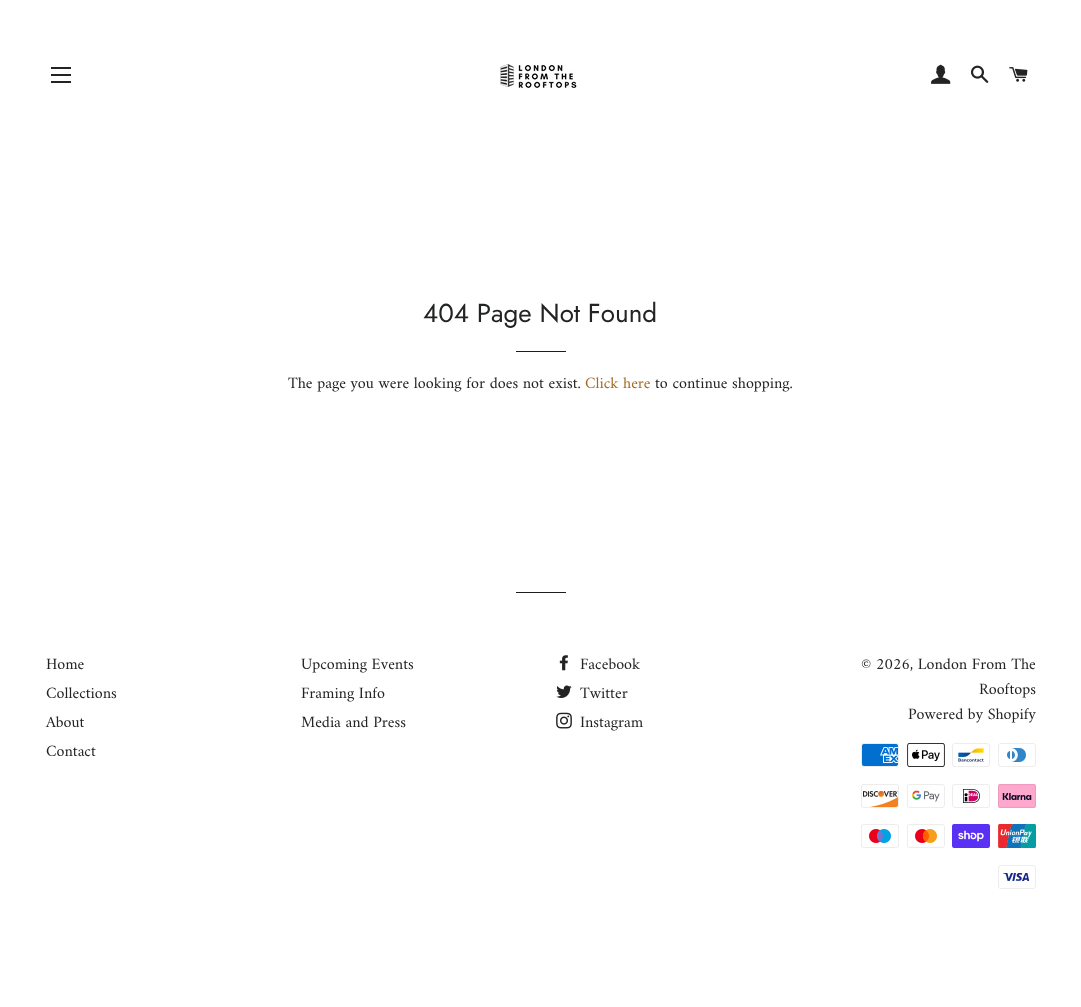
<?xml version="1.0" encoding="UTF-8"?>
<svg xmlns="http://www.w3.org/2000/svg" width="1081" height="1007">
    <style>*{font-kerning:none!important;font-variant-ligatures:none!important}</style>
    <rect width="100%" height="100%" fill="#FFFFFF"/>
    <rect x="51" y="67" width="20" height="2" fill="#222323"/>
    <rect x="51" y="74" width="20" height="2" fill="#222323"/>
    <rect x="51" y="81" width="20" height="2" fill="#222323"/>
    <image x="500" y="64" width="77" height="24" href="img_01.png"/>
    <image x="931" y="64" width="20" height="20" href="img_02.png"/>
    <image x="971" y="65" width="18" height="18" href="img_03.png"/>
    <image x="1009" y="67" width="19" height="15" href="img_04.png"/>
    <text x="423" y="322" font-family="Jost" font-size="26" fill="#222323">404 Page Not Found</text>
    <rect x="516" y="351" width="50" height="1" fill="#1C1D1D"/>
    <text x="288" y="388" font-family="Amiri" font-size="16" fill="#222323">The page you were looking for does not exist.</text>
    <text x="585" y="388" font-family="Amiri" font-size="16" fill="#A26B25">Click here</text>
    <text x="655" y="388" font-family="Amiri" font-size="16" fill="#222323">to continue shopping.</text>
    <rect x="516" y="592" width="50" height="1" fill="#1C1D1D"/>
    <text font-family="Amiri" font-size="16" fill="#222323">
        <tspan x="46" y="669">Home</tspan>
        <tspan x="46" y="698">Collections</tspan>
        <tspan x="46" y="727">About</tspan>
        <tspan x="46" y="756">Contact</tspan>
    </text>
    <text font-family="Amiri" font-size="16" fill="#222323">
        <tspan x="301" y="669">Upcoming Events</tspan>
        <tspan x="301" y="698">Framing Info</tspan>
        <tspan x="301" y="727">Media and Press</tspan>
    </text>
    <image x="559" y="655" width="9" height="16" href="img_05.png"/>
    <text x="580" y="669" font-family="Amiri" font-size="16" fill="#222323">Facebook</text>
    <image x="556" y="685" width="16" height="13" href="img_06.png"/>
    <text x="580" y="698" font-family="Amiri" font-size="16" fill="#222323">Twitter</text>
    <image x="556" y="712" width="16" height="17" href="img_07.png"/>
    <text x="580" y="727" font-family="Amiri" font-size="16" fill="#222323">Instagram</text>
    <text x="861" y="669" font-family="Amiri" font-size="16" fill="#222323">© 2026, London From The</text>
    <text x="979" y="694" font-family="Amiri" font-size="16" fill="#222323">Rooftops</text>
    <text x="908" y="719" font-family="Amiri" font-size="16" fill="#222323">Powered by Shopify</text>
    <image x="861" y="743" width="38" height="24" href="img_08.png"/>
    <image x="907" y="743" width="38" height="24" href="img_09.png"/>
    <image x="952" y="743" width="38" height="24" href="img_10.png"/>
    <image x="998" y="743" width="38" height="24" href="img_11.png"/>
    <image x="861" y="784" width="38" height="24" href="img_12.png"/>
    <image x="907" y="784" width="38" height="24" href="img_13.png"/>
    <image x="952" y="784" width="38" height="24" href="img_14.png"/>
    <image x="998" y="784" width="38" height="24" href="img_15.png"/>
    <image x="861" y="824" width="38" height="24" href="img_16.png"/>
    <image x="907" y="824" width="38" height="24" href="img_17.png"/>
    <image x="952" y="824" width="38" height="24" href="img_18.png"/>
    <image x="998" y="824" width="38" height="24" href="img_19.png"/>
    <image x="998" y="865" width="38" height="24" href="img_20.png"/>
</svg>
